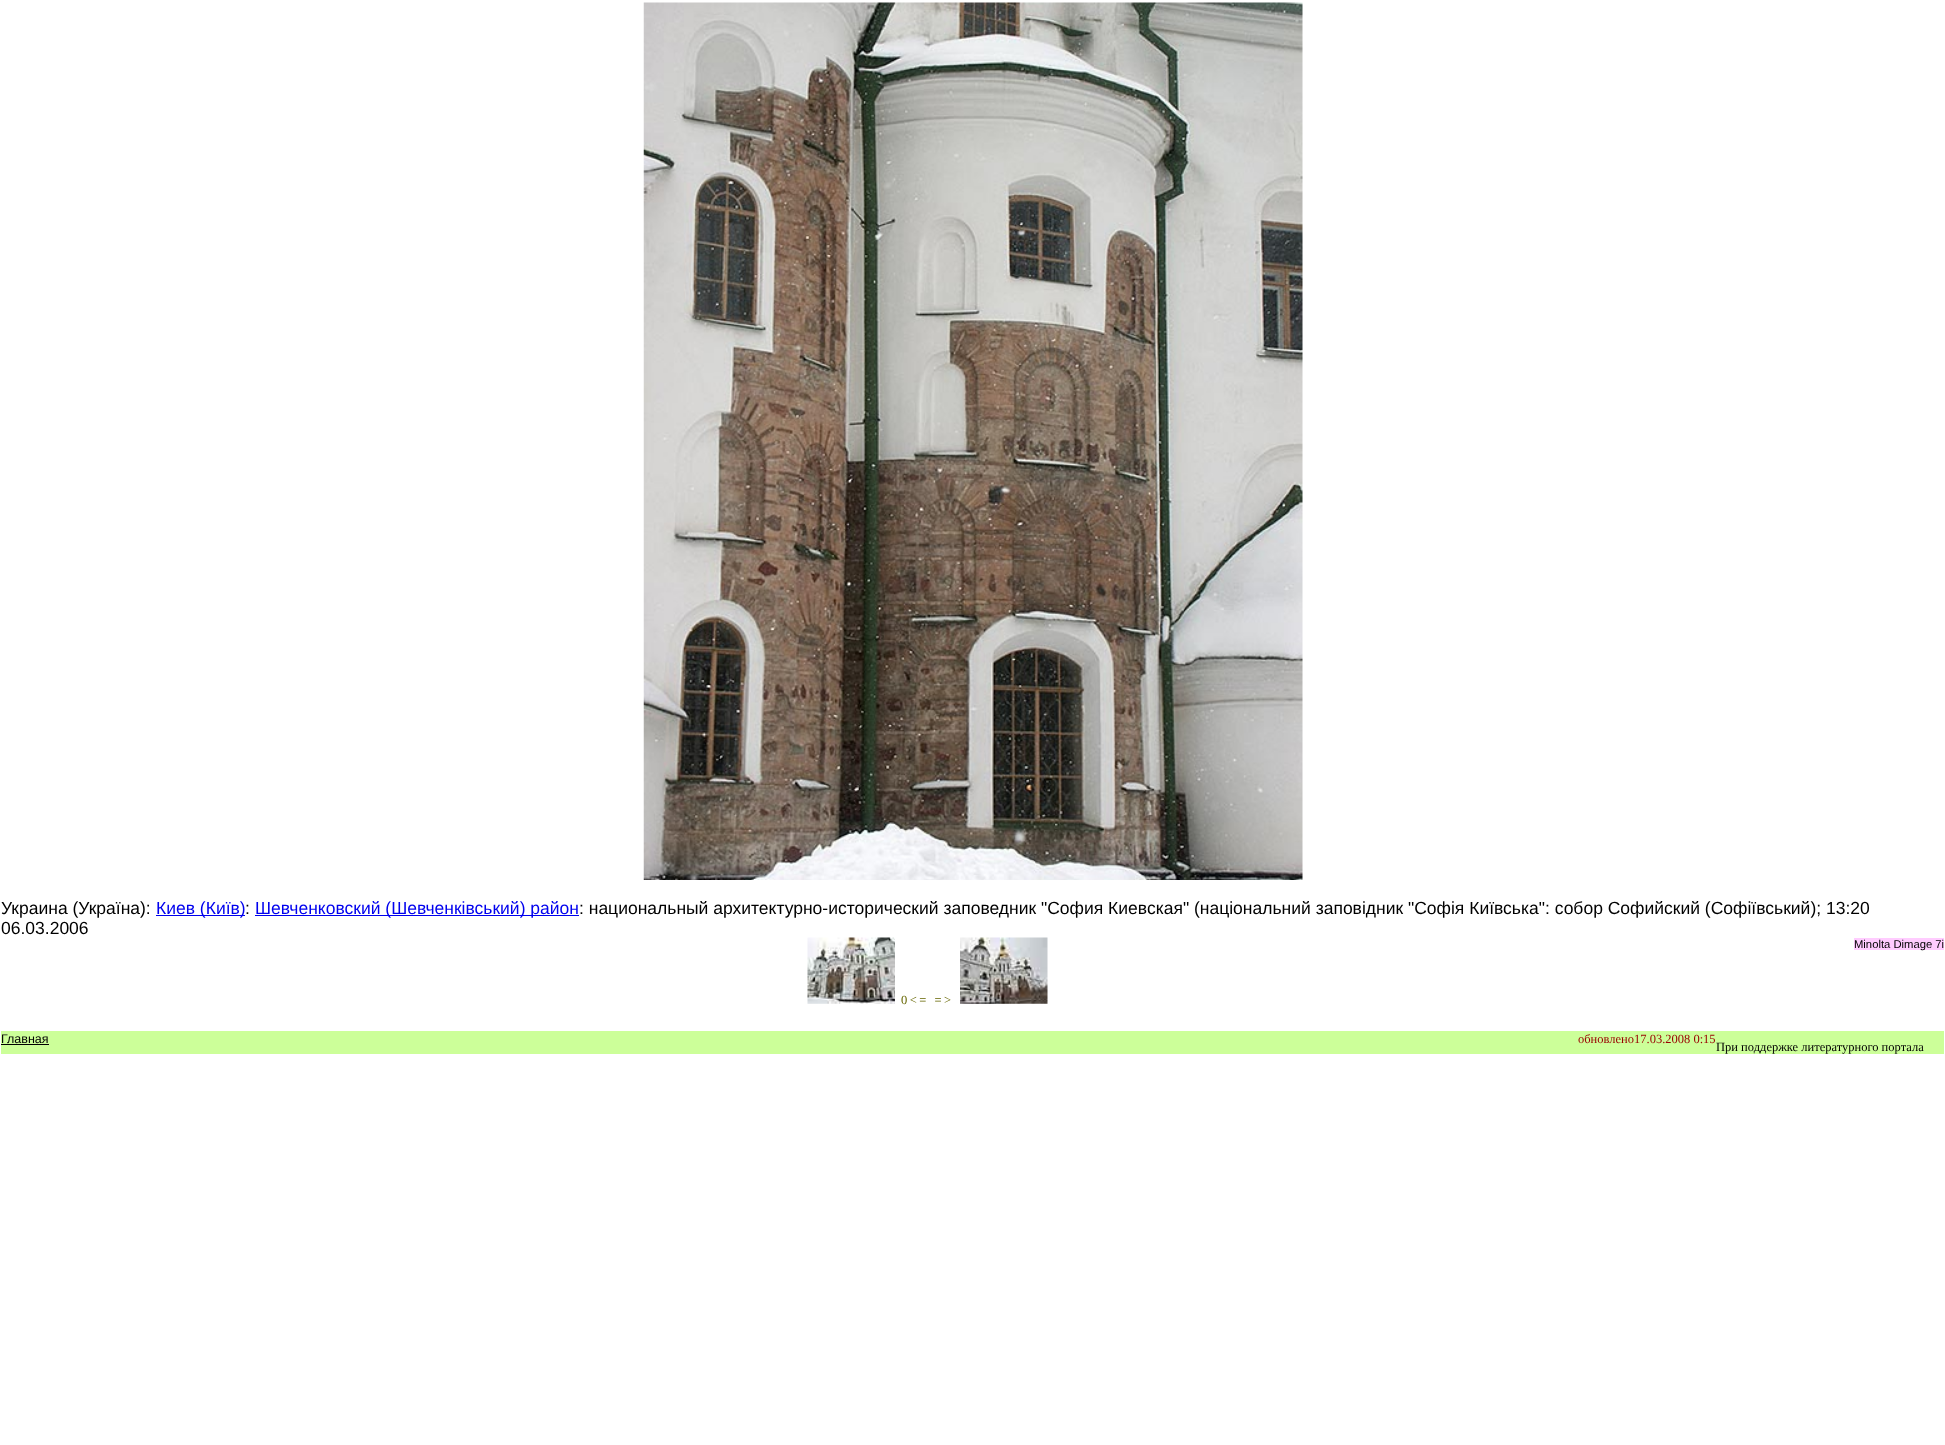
<?xml version="1.0" encoding="UTF-8"?>
<svg xmlns="http://www.w3.org/2000/svg" width="1945" height="1445">
    <rect width="100%" height="100%" fill="#FFFFFF"/>
    <image x="643" y="2" width="660" height="878" href="img_01.png"/>
    <text x="1" y="914" font-family="Liberation Sans" font-size="17.5" fill="#000000">Украина (Украïна):</text>
    <rect x="156" y="915" width="89" height="1" fill="#0000EE"/>
    <text x="156" y="914" font-family="Liberation Sans" font-size="17.5" fill="#0000EE">Киев (Киïв)</text>
    <text x="245" y="914" font-family="Liberation Sans" font-size="17.5" fill="#000000">:</text>
    <rect x="255" y="915" width="324" height="1" fill="#0000EE"/>
    <text x="255" y="914" font-family="Liberation Sans" font-size="17.5" fill="#0000EE">Шевченковский (Шевченкiвський) район</text>
    <text x="579" y="914" font-family="Liberation Sans" font-size="17.5" fill="#000000">: национальный архитектурно-исторический заповедник "София Киевская" (нацiональний заповiдник "Софiя Киïвська": собор Софийский (Софiïвський); 13:20</text>
    <text x="1" y="934" font-family="Liberation Sans" font-size="17.5" fill="#000000">06.03.2006</text>
    <rect x="1854" y="938" width="90" height="12" fill="#FFCCFF"/>
    <text x="1854" y="948" font-family="Liberation Sans" font-size="11.25" fill="#000000">Minolta Dimage 7i</text>
    <image x="807" y="937" width="88" height="67" href="img_02.png"/>
    <text x="901" y="1004" font-family="Liberation Serif" font-size="12.5" letter-spacing="2.5" fill="#666600">0&lt;= =&gt;</text>
    <image x="960" y="937" width="88" height="67" href="img_03.png"/>
    <rect x="1" y="1031" width="1943" height="23" fill="#CCFF99"/>
    <text x="1" y="1043" font-family="Liberation Sans" font-size="12.5" fill="#000000">Главная</text>
    <rect x="1" y="1044" width="48" height="1" fill="#000000"/>
    <text x="1578" y="1043" font-family="Liberation Serif" font-size="12.5" fill="#990000">обновлено17.03.2008 0:15</text>
    <text x="1716" y="1051" font-family="Liberation Serif" font-size="12.5" fill="#000000">При поддержке литературного портала</text>
</svg>
